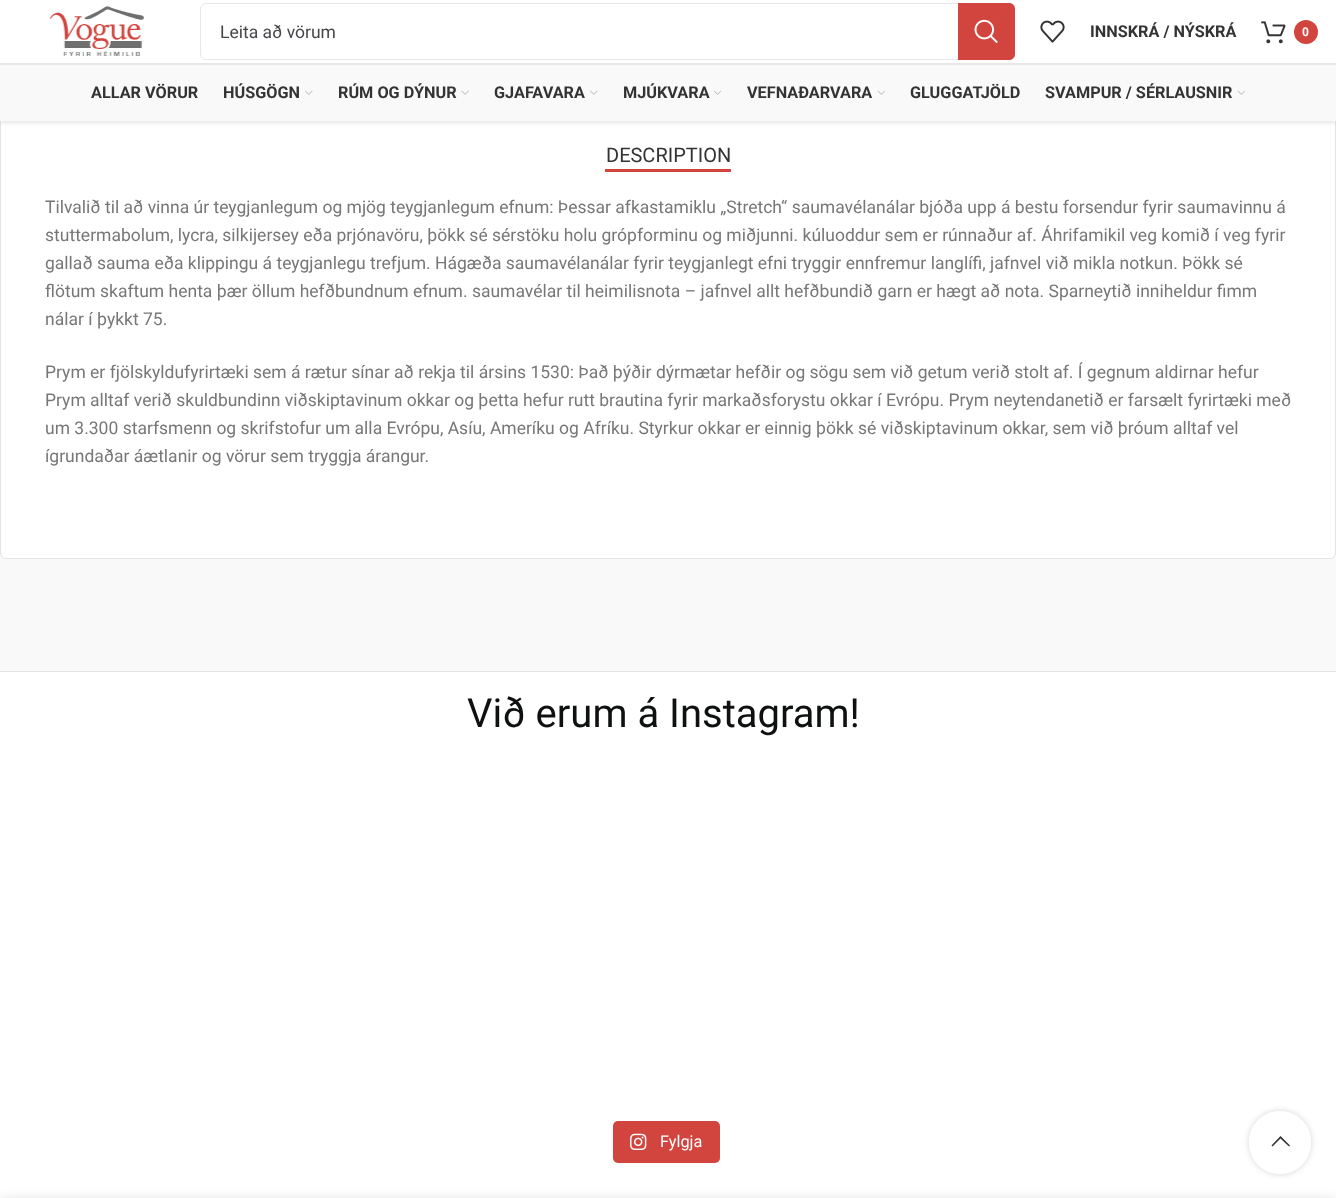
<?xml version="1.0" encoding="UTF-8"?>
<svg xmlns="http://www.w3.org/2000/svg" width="1336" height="1198">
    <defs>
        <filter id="blur1" x="-50%" y="-200%" width="200%" height="500%"><feGaussianBlur stdDeviation="2"/></filter>
        <clipPath id="clip1"><path d="M 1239 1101 H 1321 V 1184 H 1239 Z M 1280 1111 C 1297 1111 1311 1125 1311 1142 V 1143 C 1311 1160 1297 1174 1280 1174 C 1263 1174 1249 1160 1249 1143 V 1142 C 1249 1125 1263 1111 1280 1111 Z" clip-rule="evenodd"/></clipPath>
        <filter id="blur2" x="-50%" y="-200%" width="200%" height="500%"><feGaussianBlur stdDeviation="3"/></filter>
        <filter id="blur3" x="-50%" y="-200%" width="200%" height="500%"><feGaussianBlur stdDeviation="5.5"/></filter>
    </defs>
    <rect width="100%" height="100%" fill="#FFFFFF"/>
    <rect x="0" y="553" width="1336" height="118" fill="#F9F9F9"/>
    <rect x="0.5" y="-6.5" width="1335" height="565" rx="5.5" fill="#FFFFFF" stroke="#E4E4E4"/>
    <rect x="0" y="1" width="1336" height="122" fill="#000000" fill-opacity="0.1" filter="url(#blur1)"/>
    <rect x="0" y="0" width="1336" height="63" fill="#FFFFFF"/>
    <rect x="0" y="63" width="1336" height="2" fill="#E7E7E7"/>
    <image x="49" y="6" width="96" height="50" href="img_01.png"/>
    <rect x="200.5" y="3.5" width="814" height="56" rx="5.5" fill="none" stroke="#E7E7E7"/>
    <text x="220" y="38" font-family="Roboto" font-size="17.5" fill="#45474A">Leita að vörum</text>
    <path d="M 958 3 H 1009 C 1012.5 3 1015 5.5 1015 9 V 54 C 1015 57.5 1012.5 60 1009 60 H 958 Z" fill="#D2453F"/>
    <image x="974" y="19" width="24" height="25" href="img_02.png"/>
    <image x="1040" y="20" width="25" height="23" href="img_03.png"/>
    <text x="1090" y="37" font-family="Roboto" font-size="16.25" font-weight="700" fill="#333333">INNSKRÁ / NÝSKRÁ</text>
    <image x="1261" y="21" width="25" height="23" href="img_04.png"/>
    <circle cx="1306" cy="32" r="12" fill="#D2453F"/>
    <text x="1302" y="36" font-family="Roboto" font-size="12" font-weight="700" fill="#FFFFFF">0</text>
    <rect x="0" y="65" width="1336" height="56" fill="#F9F9F9"/>
    <text x="91" y="98" font-family="Roboto" font-size="16.25" font-weight="700" fill="#333333">ALLAR VÖRUR</text>
    <text x="223" y="98" font-family="Roboto" font-size="16.25" font-weight="700" fill="#333333">HÚSGÖGN</text>
    <image x="305" y="90" width="8" height="5" href="img_05.png"/>
    <text x="338" y="98" font-family="Roboto" font-size="16.25" font-weight="700" fill="#333333">RÚM OG DÝNUR</text>
    <image x="461" y="90" width="8" height="5" href="img_06.png"/>
    <text x="494" y="98" font-family="Roboto" font-size="16.25" font-weight="700" fill="#333333">GJAFAVARA</text>
    <image x="590" y="90" width="8" height="5" href="img_05.png"/>
    <text x="623" y="98" font-family="Roboto" font-size="16.25" font-weight="700" fill="#333333">MJÚKVARA</text>
    <image x="714" y="90" width="8" height="5" href="img_07.png"/>
    <text x="747" y="98" font-family="Roboto" font-size="16.25" font-weight="700" fill="#333333">VEFNAÐARVARA</text>
    <image x="877" y="90" width="8" height="5" href="img_08.png"/>
    <text x="910" y="98" font-family="Roboto" font-size="16.25" font-weight="700" fill="#333333">GLUGGATJÖLD</text>
    <text x="1045" y="98" font-family="Roboto" font-size="16.25" font-weight="700" fill="#333333">SVAMPUR / SÉRLAUSNIR</text>
    <image x="1237" y="90" width="8" height="5" href="img_08.png"/>
    <text x="606" y="162" font-family="Roboto" font-size="20" fill="#333333">DESCRIPTION</text>
    <rect x="605" y="169" width="126" height="3" fill="#D2453F"/>
    <text font-family="Roboto" font-size="17.5" fill="#777777">
        <tspan x="45" y="213">Tilvalið til að vinna úr teygjanlegum og mjög teygjanlegum efnum: Þessar afkastamiklu „Stretch“ saumavélanálar bjóða upp á bestu forsendur fyrir saumavinnu á</tspan>
        <tspan x="45" y="241">stuttermabolum, lycra, silkijersey eða prjónavöru, þökk sé sérstöku holu grópforminu og miðjunni. kúluoddur sem er rúnnaður af. Áhrifamikil veg komið í veg fyrir</tspan>
        <tspan x="45" y="269">gallað sauma eða klippingu á teygjanlegu trefjum. Hágæða saumavélanálar fyrir teygjanlegt efni tryggir ennfremur langlífi, jafnvel við mikla notkun. Þökk sé</tspan>
        <tspan x="45" y="297">flötum skaftum henta þær öllum hefðbundnum efnum. saumavélar til heimilisnota – jafnvel allt hefðbundið garn er hægt að nota. Sparneytið inniheldur fimm</tspan>
        <tspan x="45" y="325">nálar í þykkt 75.</tspan>
    </text>
    <text font-family="Roboto" font-size="17.5" fill="#777777">
        <tspan x="45" y="378">Prym er fjölskyldufyrirtæki sem á rætur sínar að rekja til ársins 1530: Það þýðir dýrmætar hefðir og sögu sem við getum verið stolt af. Í gegnum aldirnar hefur</tspan>
        <tspan x="45" y="406">Prym alltaf verið skuldbundinn viðskiptavinum okkar og þetta hefur rutt brautina fyrir markaðsforystu okkar í Evrópu. Prym neytendanetið er farsælt fyrirtæki með</tspan>
        <tspan x="45" y="434">um 3.300 starfsmenn og skrifstofur um alla Evrópu, Asíu, Ameríku og Afríku. Styrkur okkar er einnig þökk sé viðskiptavinum okkar, sem við þróum alltaf vel</tspan>
        <tspan x="45" y="462">ígrundaðar áætlanir og vörur sem tryggja árangur.</tspan>
    </text>
    <rect x="0" y="671" width="1336" height="1" fill="#E4E4E4"/>
    <text x="467" y="727" font-family="Roboto" font-size="40" fill="#0F1111">Við erum á Instagram!</text>
    <rect x="613" y="1121" width="107" height="42" rx="5" fill="#D2453F"/>
    <image x="630" y="1133" width="17" height="17" href="img_09.png"/>
    <text x="660" y="1147" font-family="Roboto" font-size="16.25" fill="#FFFFFF">Fylgja</text>
    <g clip-path="url(#clip1)">
        <rect x="1249" y="1111" width="62" height="63" rx="31" fill="#000000" fill-opacity="0.17" filter="url(#blur2)"/>
    </g>
    <rect x="1249" y="1111" width="62" height="63" rx="31" fill="#FFFFFF" fill-opacity="0.9"/>
    <path d="M 1289 1146.5 L 1290 1145.5 L 1280.5 1136 L 1271.5 1145.5 L 1272.5 1146.5 L 1280.5 1138.5 Z" fill="#333333"/>
    <rect x="0" y="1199" width="1336" height="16" fill="#000000" fill-opacity="0.12" filter="url(#blur3)"/>
</svg>
